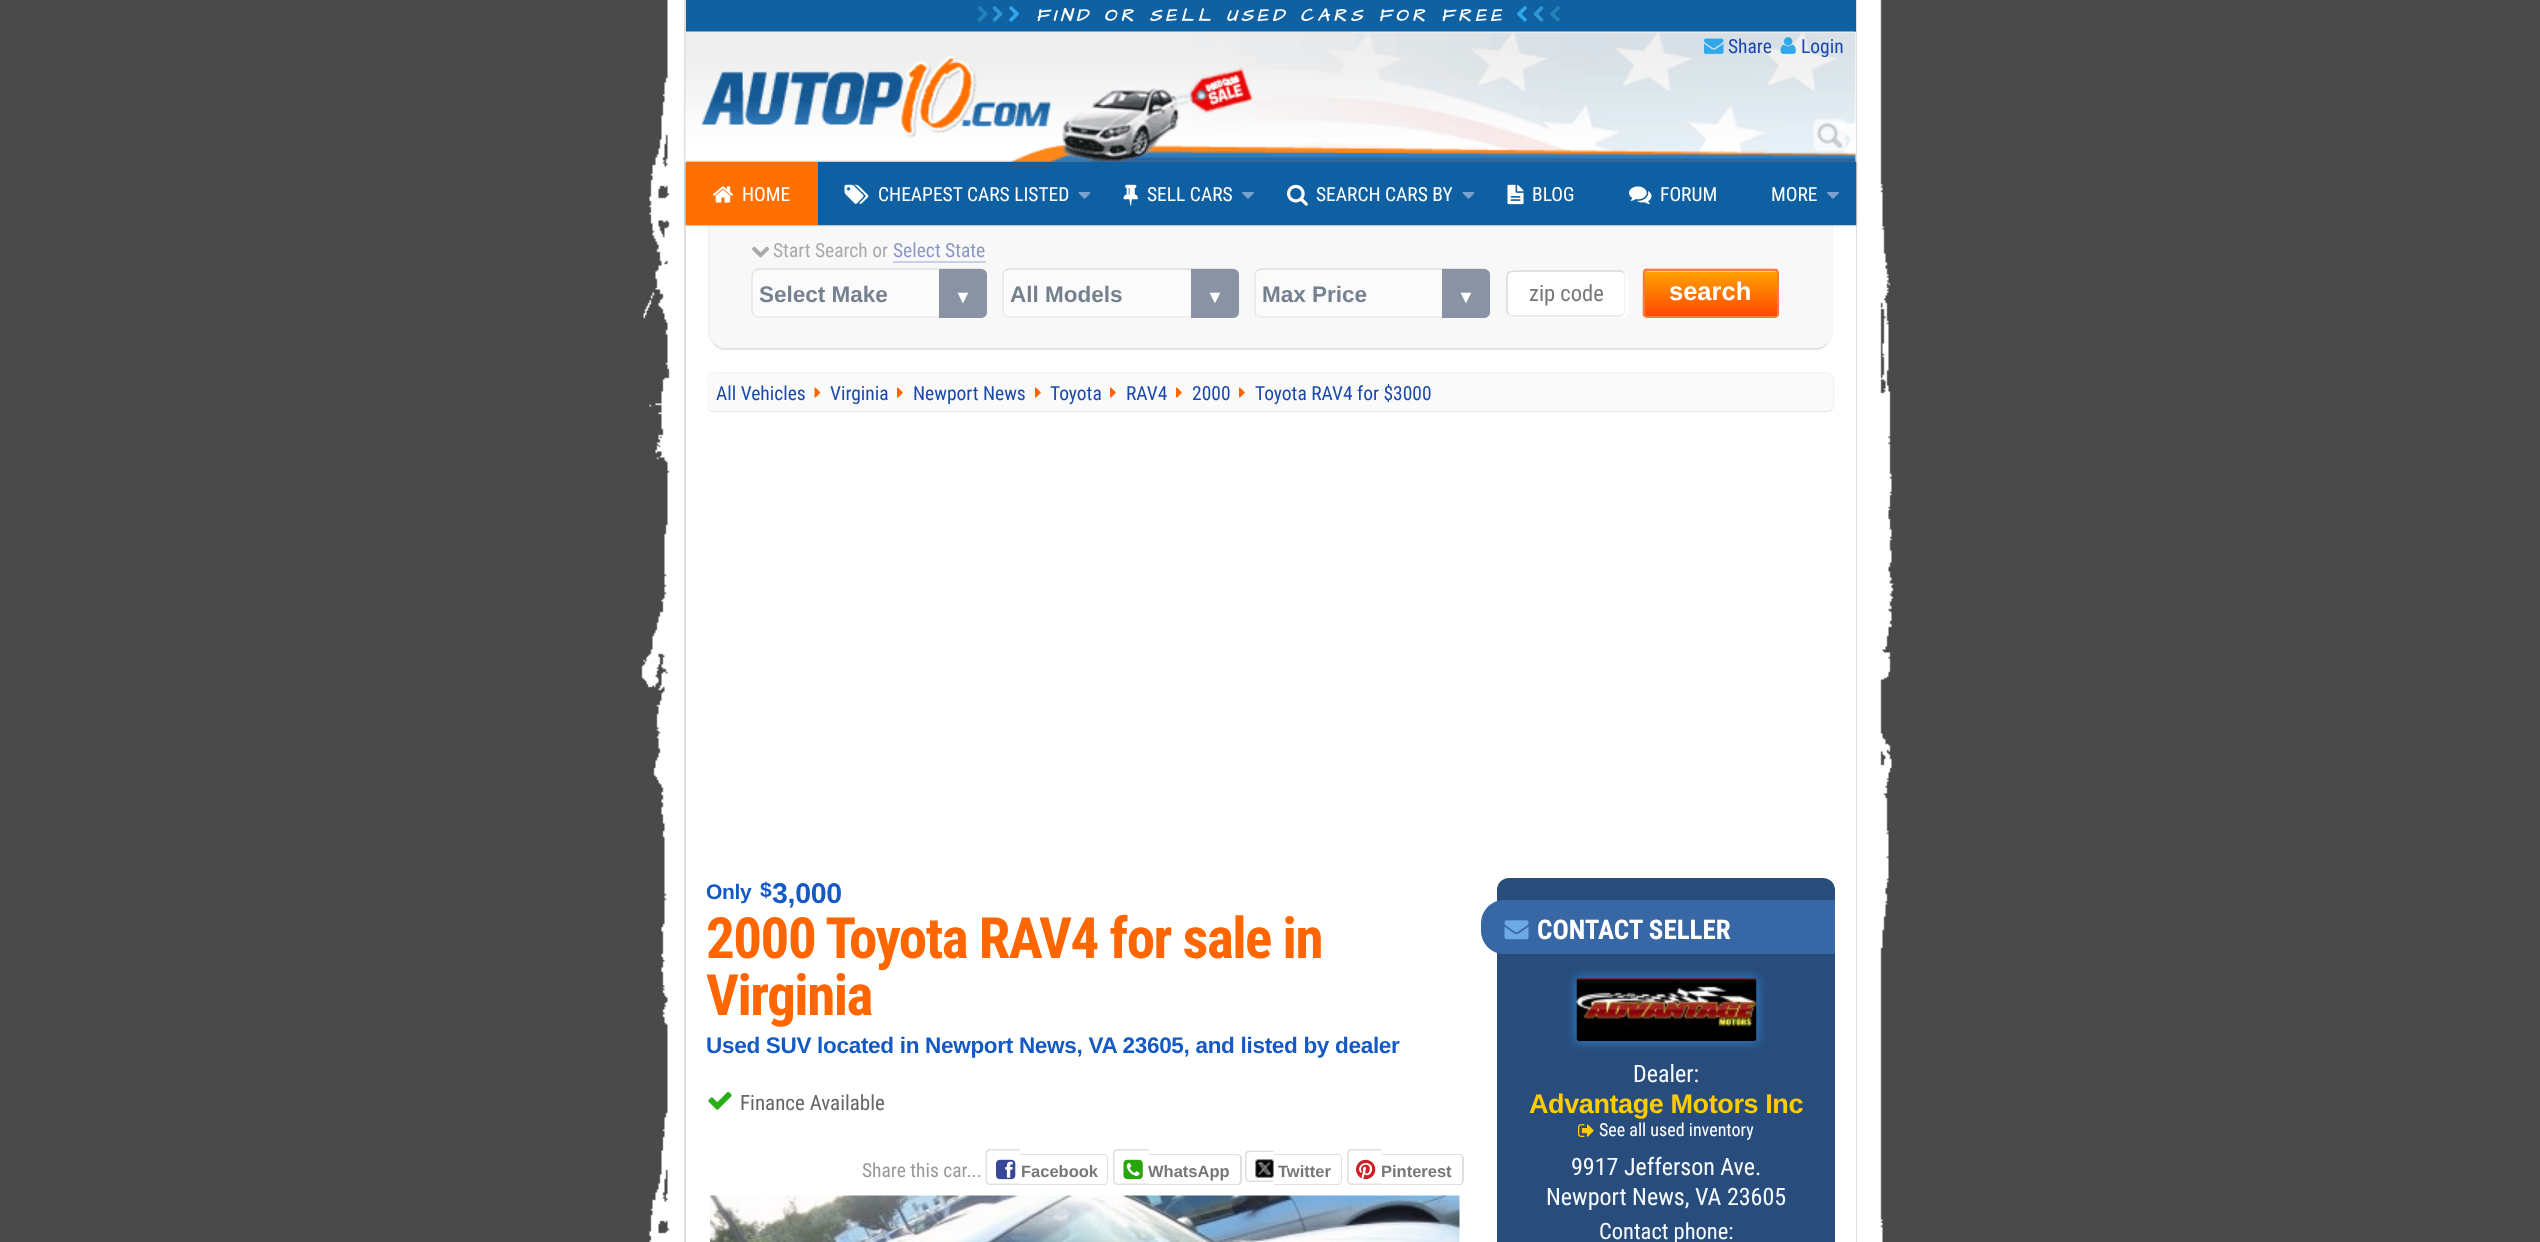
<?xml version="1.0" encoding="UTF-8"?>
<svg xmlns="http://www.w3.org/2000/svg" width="2540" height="1242">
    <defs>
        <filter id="blur1" x="-50%" y="-200%" width="200%" height="500%"><feGaussianBlur stdDeviation="1"/></filter>
        <filter id="blur2" x="-50%" y="-200%" width="200%" height="500%"><feGaussianBlur stdDeviation="5"/></filter>
    </defs>
    <rect width="100%" height="100%" fill="#4A4A4A"/>
    <image x="641" y="0" width="1253" height="1242" href="img_01.png"/>
    <path d="M 684 0 H 1857 V 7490 C 1857 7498 1850 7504 1842 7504 H 699 C 691 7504 684 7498 684 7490 Z M 686 0 H 1856 V 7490 C 1856 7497 1849 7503 1842 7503 H 699 C 692 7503 686 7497 686 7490 Z" fill="#DFDFDF" fill-rule="evenodd"/>
    <rect x="686" y="0" width="1170" height="32" fill="#0F61A2"/>
    <image x="977" y="6" width="11" height="16" href="img_02.png"/>
    <image x="992" y="6" width="11" height="16" href="img_03.png"/>
    <image x="1009" y="6" width="10" height="16" href="img_04.png"/>
    <text x="1036" y="21" font-family="Architects Daughter" font-size="18" font-weight="700" font-style="italic" letter-spacing="4.5" fill="#FFFFFF">FIND OR SELL USED CARS FOR FREE</text>
    <image x="1517" y="6" width="10" height="16" href="img_05.png"/>
    <image x="1533" y="6" width="11" height="16" href="img_06.png"/>
    <image x="1550" y="6" width="10" height="16" href="img_07.png"/>
    <image x="685" y="31" width="1171" height="136" href="img_08.png"/>
    <image x="1704" y="38" width="20" height="16" href="img_09.png"/>
    <text x="1728" y="53" font-family="Roboto Condensed" font-size="19.5" fill="#1A49AD">Share</text>
    <image x="1780" y="37" width="16" height="17" href="img_10.png"/>
    <text x="1801" y="53" font-family="Roboto Condensed" font-size="19.5" fill="#1A49AD">Login</text>
    <image x="1813" y="118" width="34" height="34" href="img_11.png"/>
    <path d="M 708 225 H 1833 V 332 C 1833 342 1825 350 1815 350 H 726 C 716 350 708 342 708 332 Z" fill="#F8F8F8"/>
    <path d="M 1833 225 H 1832 V 332 C 1832 336 1830 340 1827 343 L 1828 344 C 1831 341 1833 336 1833 332 Z" fill="#F4F4F4"/>
    <path d="M 722 350 C 719 349 716 347 713 344 L 714 343 C 717 346 721 348 726 348 H 1815 C 1820 348 1824 346 1827 343 L 1828 344 C 1825 347 1822 349 1819 350 Z" fill="#E4E4E4"/>
    <path d="M 708 225 H 710 V 332 C 710 336 712 340 714 343 L 713 344 C 710 341 708 336 708 332 Z" fill="#F1F1F1"/>
    <rect x="686" y="162" width="1170" height="63" fill="#636363" filter="url(#blur1)"/>
    <rect x="818" y="162" width="1038" height="63" fill="#0F60A2"/>
    <rect x="686" y="162" width="132" height="63" fill="#FF7000"/>
    <image x="712" y="186" width="21" height="17" href="img_12.png"/>
    <text x="742" y="201" font-family="Roboto Condensed" font-size="19.5" fill="#FFFFFF">HOME</text>
    <image x="844" y="184" width="25" height="20" href="img_13.png"/>
    <text x="878" y="201" font-family="Roboto Condensed" font-size="19.5" fill="#FFFFFF">CHEAPEST CARS LISTED</text>
    <image x="1078" y="192" width="13" height="7" href="img_14.png"/>
    <image x="1123" y="184" width="15" height="22" href="img_15.png"/>
    <text x="1147" y="201" font-family="Roboto Condensed" font-size="19.5" fill="#FFFFFF">SELL CARS</text>
    <image x="1242" y="192" width="12" height="7" href="img_16.png"/>
    <image x="1287" y="184" width="21" height="22" href="img_17.png"/>
    <text x="1316" y="201" font-family="Roboto Condensed" font-size="19.5" fill="#FFFFFF">SEARCH CARS BY</text>
    <image x="1462" y="192" width="13" height="7" href="img_14.png"/>
    <image x="1507" y="184" width="17" height="21" href="img_18.png"/>
    <text x="1532" y="201" font-family="Roboto Condensed" font-size="19.5" fill="#FFFFFF">BLOG</text>
    <image x="1629" y="186" width="23" height="19" href="img_19.png"/>
    <text x="1660" y="201" font-family="Roboto Condensed" font-size="19.5" fill="#FFFFFF">FORUM</text>
    <text x="1771" y="201" font-family="Roboto Condensed" font-size="19.5" fill="#FFFFFF">MORE</text>
    <image x="1827" y="192" width="12" height="7" href="img_16.png"/>
    <image x="752" y="246" width="17" height="12" href="img_20.png"/>
    <text x="773" y="257" font-family="Roboto Condensed" font-size="19.5" fill="#AAAAAA">Start Search or</text>
    <text x="893" y="257" font-family="Roboto Condensed" font-size="19.5" fill="#8D98C2">Select State</text>
    <rect x="893" y="261" width="93" height="2" fill="#C4D1E6"/>
    <rect x="752" y="269" width="235" height="49" rx="8" fill="#FBFBFB"/>
    <path d="M 754 271 C 755.5 270 757 269 759 269 H 979.5 C 981.5 269 983 270 984.5 271" fill="none" stroke="#DEDEDE" stroke-width="1.5"/>
    <path d="M 984.5 271 C 985.5 272.5 986 274 986 276 V 310.5 C 986 312.5 985.5 314 984.5 315.5 C 983 316.5 981.5 317 979.5 317 H 759 C 757 317 755.5 316.5 754 315.5" fill="none" stroke="#EBEBEB" stroke-width="1.5"/>
    <path d="M 754 315.5 C 753 314 752 312.5 752 310.5 V 276 C 752 274 753 272.5 754 271" fill="none" stroke="#E6E6E6" stroke-width="1.5"/>
    <text x="759" y="302" font-family="Liberation Sans" font-size="22.5" font-weight="700" fill="#768190">Select Make</text>
    <path d="M 939 269 H 981 C 984.5 269 987 271.5 987 275 V 312 C 987 315.5 984.5 318 981 318 H 939 Z" fill="#8A93A3"/>
    <text x="954" y="303" font-family="Liberation Sans" font-size="18" fill="#FFFFFF">▼</text>
    <rect x="1002" y="269" width="237" height="49" rx="8" fill="#FBFBFB"/>
    <path d="M 1004.5 271 C 1006 270 1007.5 269 1009.5 269 H 1231.5 C 1233.5 269 1235 270 1236.5 271" fill="none" stroke="#DEDEDE" stroke-width="1.5"/>
    <path d="M 1236.5 271 C 1237.5 272.5 1238 274 1238 276 V 310.5 C 1238 312.5 1237.5 314 1236.5 315.5 C 1235 316.5 1233.5 317 1231.5 317 H 1009.5 C 1007.5 317 1006 316.5 1004.5 315.5" fill="none" stroke="#EBEBEB" stroke-width="1.5"/>
    <path d="M 1004.5 315.5 C 1003.5 314 1003 312.5 1003 310.5 V 276 C 1003 274 1003.5 272.5 1004.5 271" fill="none" stroke="#E6E6E6" stroke-width="1.5"/>
    <text x="1010" y="302" font-family="Liberation Sans" font-size="22.5" font-weight="700" fill="#768190">All Models</text>
    <path d="M 1191 269 H 1233 C 1236.5 269 1239 271.5 1239 275 V 312 C 1239 315.5 1236.5 318 1233 318 H 1191 Z" fill="#8A93A3"/>
    <text x="1206" y="303" font-family="Liberation Sans" font-size="18" fill="#FFFFFF">▼</text>
    <rect x="1254" y="269" width="236" height="49" rx="8" fill="#FBFBFB"/>
    <path d="M 1256.5 271 C 1258 270 1259.5 269 1261.5 269 H 1482 C 1484 269 1485.5 270 1487 271" fill="none" stroke="#DEDEDE" stroke-width="1.5"/>
    <path d="M 1487 271 C 1488 272.5 1489 274 1489 276 V 310.5 C 1489 312.5 1488 314 1487 315.5 C 1485.5 316.5 1484 317 1482 317 H 1261.5 C 1259.5 317 1258 316.5 1256.5 315.5" fill="none" stroke="#EBEBEB" stroke-width="1.5"/>
    <path d="M 1256.5 315.5 C 1255.5 314 1255 312.5 1255 310.5 V 276 C 1255 274 1255.5 272.5 1256.5 271" fill="none" stroke="#E6E6E6" stroke-width="1.5"/>
    <text x="1262" y="302" font-family="Liberation Sans" font-size="22.5" font-weight="700" fill="#768190">Max Price</text>
    <path d="M 1442 269 H 1484 C 1487.5 269 1490 271.5 1490 275 V 312 C 1490 315.5 1487.5 318 1484 318 H 1442 Z" fill="#8A93A3"/>
    <text x="1457" y="303" font-family="Liberation Sans" font-size="18" fill="#FFFFFF">▼</text>
    <path d="M 1509 316 C 1511 317 1512 318 1514 318 H 1622 C 1625 318 1628 315 1628 312 V 278 C 1628 276 1627 274 1625 273 L 1626 276 V 310 C 1626 314 1623 316 1620 316 H 1512 Z" fill="#FFFFFF"/>
    <rect x="1506" y="270" width="120" height="47" rx="6" fill="#FFFFFF"/>
    <path d="M 1623.5 272.5 C 1624.5 273.5 1625 274.5 1625 276 V 310.5 C 1625 312 1624.5 313 1623.5 314" fill="none" stroke="#F3F3F3" stroke-width="1.5"/>
    <path d="M 1623.5 314 C 1622.5 315 1621.5 316 1620 316 H 1512 C 1510.5 316 1509.5 315 1508.5 314" fill="none" stroke="#E7E7E7" stroke-width="1.5"/>
    <path d="M 1508.5 314 C 1506 312 1507 307.5 1507 305 V 293 C 1507 267.5 1503 271 1530 271 H 1620 C 1621.5 271 1622.5 271.5 1623.5 272.5" fill="none" stroke="#D8D8D8" stroke-width="1.5"/>
    <text x="1529" y="301" font-family="Roboto Condensed" font-size="22.5" fill="#777777">zip code</text>
    <image x="1642" y="268" width="137" height="50" href="img_21.png"/>
    <path d="M 1647 272 H 1774 C 1776 272 1778 273 1778 274 C 1778 272 1778 270 1776 270 H 1646 C 1644 270 1644 272 1644 274 C 1644 273 1645 272 1647 272 Z" fill="#FFFFFF" fill-opacity="0.5"/>
    <rect x="1644" y="270" width="134" height="47" rx="4" fill="none" stroke="#FF7845" stroke-width="2"/>
    <text x="1669" y="300" font-family="Liberation Sans" font-size="25.5" font-weight="700" fill="#FFFFFF">search</text>
    <rect x="707" y="372" width="1128" height="41" rx="8" fill="#FAFAFA"/>
    <path d="M 714 372 C 711 372 706 374 706 378 C 708 375 711 374 714 374 H 1827 C 1828 374 1830 374 1831 375 L 1832 374 C 1831 373 1829 372 1827 372 Z" fill="#F5F5F5"/>
    <path d="M 1831 409 C 1832 408 1833 406.5 1833 405 V 380 C 1833 378 1832 376.5 1831 375.5 L 1832 374.5 C 1833.5 375.5 1834 377.5 1834 380 V 405 C 1834 407 1833 409 1832 410 Z" fill="#F3F3F3"/>
    <path d="M 706 407 C 708 409 711 411 714 411 H 1827 C 1828 411 1830 410 1831 409 L 1832 410 C 1831 411 1829 412 1827 412 H 714 C 711 412 708 410 706 407 Z" fill="#E7E7E7"/>
    <text x="716" y="400" font-family="Roboto Condensed" font-size="19.5" fill="#1A49AD">All Vehicles</text>
    <image x="814" y="387" width="7" height="11" href="img_22.png"/>
    <text x="830" y="400" font-family="Roboto Condensed" font-size="19.5" fill="#1A49AD">Virginia</text>
    <image x="897" y="387" width="6" height="11" href="img_23.png"/>
    <text x="913" y="400" font-family="Roboto Condensed" font-size="19.5" fill="#1A49AD">Newport News</text>
    <image x="1035" y="387" width="6" height="11" href="img_23.png"/>
    <text x="1050" y="400" font-family="Roboto Condensed" font-size="19.5" fill="#1A49AD">Toyota</text>
    <image x="1110" y="387" width="6" height="11" href="img_23.png"/>
    <text x="1126" y="400" font-family="Roboto Condensed" font-size="19.5" fill="#1A49AD">RAV4</text>
    <image x="1176" y="387" width="6" height="11" href="img_23.png"/>
    <text x="1192" y="400" font-family="Roboto Condensed" font-size="19.5" fill="#1A49AD">2000</text>
    <image x="1239" y="387" width="6" height="11" href="img_23.png"/>
    <text x="1255" y="400" font-family="Roboto Condensed" font-size="19.5" fill="#1A49AD">Toyota RAV4 for $3000</text>
    <text x="706" y="899" font-family="Liberation Sans" font-size="21" font-weight="700" letter-spacing="-0.3" fill="#145AC4">Only</text>
    <text x="760" y="897" font-family="Liberation Sans" font-size="21" font-weight="700" letter-spacing="-0.3" fill="#145AC4">$</text>
    <text x="772" y="903" font-family="Liberation Sans" font-size="28.5" font-weight="700" letter-spacing="-0.3" fill="#145AC4">3,000</text>
    <text font-family="Roboto Condensed" font-size="57" font-weight="700" letter-spacing="-1.5" fill="#FF6600">
        <tspan x="706" y="958">2000 Toyota RAV4 for sale in</tspan>
        <tspan x="706" y="1015">Virginia</tspan>
    </text>
    <text x="706" y="1053" font-family="Liberation Sans" font-size="22.5" font-weight="700" letter-spacing="-0.3" fill="#145AC4">Used SUV located in Newport News, VA 23605, and listed by dealer</text>
    <image x="708" y="1091" width="24" height="19" href="img_24.png"/>
    <text x="740" y="1110" font-family="Roboto Condensed" font-size="21" fill="#666666">Finance Available</text>
    <text x="862" y="1177" font-family="Roboto Condensed" font-size="19.5" fill="#999999">Share this car...</text>
    <path d="M 990 1149 H 1020 V 1185 H 990 C 987.5 1185 985.5 1183 985.5 1180.5 V 1153.5 C 985.5 1151 987.5 1149 990 1149 Z M 990 1150.5 H 1020 V 1183.5 H 990 C 988.5 1183.5 987 1182 987 1180.5 V 1153.5 C 987 1152 988.5 1150.5 990 1150.5 Z" fill="#DFDFDF" fill-rule="evenodd"/>
    <image x="996" y="1159" width="20" height="21" href="img_25.png"/>
    <path d="M 1020 1154 H 1104 C 1106 1154 1108 1156 1108 1158 V 1180 C 1108 1183 1106 1185 1104 1185 H 1020 Z M 1020 1155 H 1104 C 1106 1155 1107 1156 1107 1158 V 1180 C 1107 1182 1106 1184 1104 1184 H 1020 Z" fill="#DFDFDF" fill-rule="evenodd"/>
    <text x="1021" y="1177" font-family="Liberation Sans" font-size="16.5" font-weight="700" fill="#777777">Facebook</text>
    <path d="M 1117.5 1149 H 1149 V 1185 H 1117.5 C 1115 1185 1113 1183 1113 1180.5 V 1153.5 C 1113 1151 1115 1149 1117.5 1149 Z M 1117.5 1150.5 H 1149 V 1183.5 H 1117.5 C 1116 1183.5 1114.5 1182 1114.5 1180.5 V 1153.5 C 1114.5 1152 1116 1150.5 1117.5 1150.5 Z" fill="#DFDFDF" fill-rule="evenodd"/>
    <image x="1123" y="1159" width="20" height="21" href="img_26.png"/>
    <path d="M 1149 1154 H 1238 C 1240 1154 1242 1156 1242 1158 V 1180 C 1242 1183 1240 1185 1238 1185 H 1149 Z M 1149 1155 H 1238 C 1239 1155 1240 1156 1240 1158 V 1180 C 1240 1182 1239 1184 1238 1184 H 1149 Z" fill="#DFDFDF" fill-rule="evenodd"/>
    <text x="1148" y="1177" font-family="Liberation Sans" font-size="16.5" font-weight="700" fill="#777777">WhatsApp</text>
    <path d="M 1249.5 1150.5 H 1273.5 V 1182 H 1249.5 C 1247 1182 1245 1180 1245 1177.5 V 1155 C 1245 1152.5 1247 1150.5 1249.5 1150.5 Z M 1249.5 1152 H 1273.5 V 1180.5 H 1249.5 C 1248 1180.5 1246.5 1179 1246.5 1177.5 V 1155 C 1246.5 1153.5 1248 1152 1249.5 1152 Z" fill="#DFDFDF" fill-rule="evenodd"/>
    <image x="1255" y="1159" width="19" height="19" href="img_27.png"/>
    <path d="M 1274 1154 H 1338 C 1340 1154 1342 1156 1342 1158 V 1180 C 1342 1183 1340 1185 1338 1185 H 1274 Z M 1274 1155 H 1338 C 1340 1155 1341 1156 1341 1158 V 1180 C 1341 1182 1340 1184 1338 1184 H 1274 Z" fill="#DFDFDF" fill-rule="evenodd"/>
    <text x="1278" y="1177" font-family="Liberation Sans" font-size="16.5" font-weight="700" fill="#777777">Twitter</text>
    <path d="M 1351.5 1149 H 1381.5 V 1185 H 1351.5 C 1349 1185 1347 1183 1347 1180.5 V 1153.5 C 1347 1151 1349 1149 1351.5 1149 Z M 1351.5 1150.5 H 1381.5 V 1183.5 H 1351.5 C 1350 1183.5 1348.5 1182 1348.5 1180.5 V 1153.5 C 1348.5 1152 1350 1150.5 1351.5 1150.5 Z" fill="#DFDFDF" fill-rule="evenodd"/>
    <image x="1356" y="1159" width="20" height="21" href="img_28.png"/>
    <path d="M 1382 1154 H 1460 C 1462 1154 1464 1156 1464 1158 V 1180 C 1464 1183 1462 1185 1460 1185 H 1382 Z M 1382 1155 H 1460 C 1461 1155 1462 1156 1462 1158 V 1180 C 1462 1182 1461 1184 1460 1184 H 1382 Z" fill="#DFDFDF" fill-rule="evenodd"/>
    <text x="1381" y="1177" font-family="Liberation Sans" font-size="16.5" font-weight="700" fill="#777777">Pinterest</text>
    <image x="710" y="1195" width="750" height="47" href="img_29.png"/>
    <rect x="1497" y="878" width="338" height="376" rx="12" fill="#284D7C"/>
    <path d="M 1504 900 H 1835 V 954 H 1504 C 1491.5 954 1481 943.5 1481 931 V 923 C 1481 910.5 1491.5 900 1504 900 Z" fill="#3768A5"/>
    <image x="1504" y="920" width="25" height="20" href="img_30.png"/>
    <text x="1537" y="939" font-family="Roboto Condensed" font-size="27" font-weight="700" fill="#FFFFFF">CONTACT SELLER</text>
    <rect x="1575" y="977" width="183" height="66" rx="5" fill="#2D79BD" filter="url(#blur2)"/>
    <image x="1576" y="978" width="181" height="63" href="img_31.png"/>
    <text x="1633" y="1082" font-family="Roboto Condensed" font-size="24" fill="#F5FBFF">Dealer:</text>
    <text x="1529" y="1113" font-family="Liberation Sans" font-size="27" font-weight="700" letter-spacing="-0.4" fill="#FFCC00">Advantage Motors Inc</text>
    <image x="1578" y="1124" width="16" height="13" href="img_32.png"/>
    <text x="1599" y="1136" font-family="Roboto Condensed" font-size="18" fill="#FFFFFF">See all used inventory</text>
    <text x="1571" y="1175" font-family="Roboto Condensed" font-size="24" fill="#F5FBFF">9917 Jefferson Ave.</text>
    <text x="1546" y="1205" font-family="Roboto Condensed" font-size="24" fill="#F5FBFF">Newport News, VA 23605</text>
    <text x="1599" y="1239" font-family="Roboto Condensed" font-size="22.5" fill="#F5FBFF">Contact phone:</text>
</svg>
